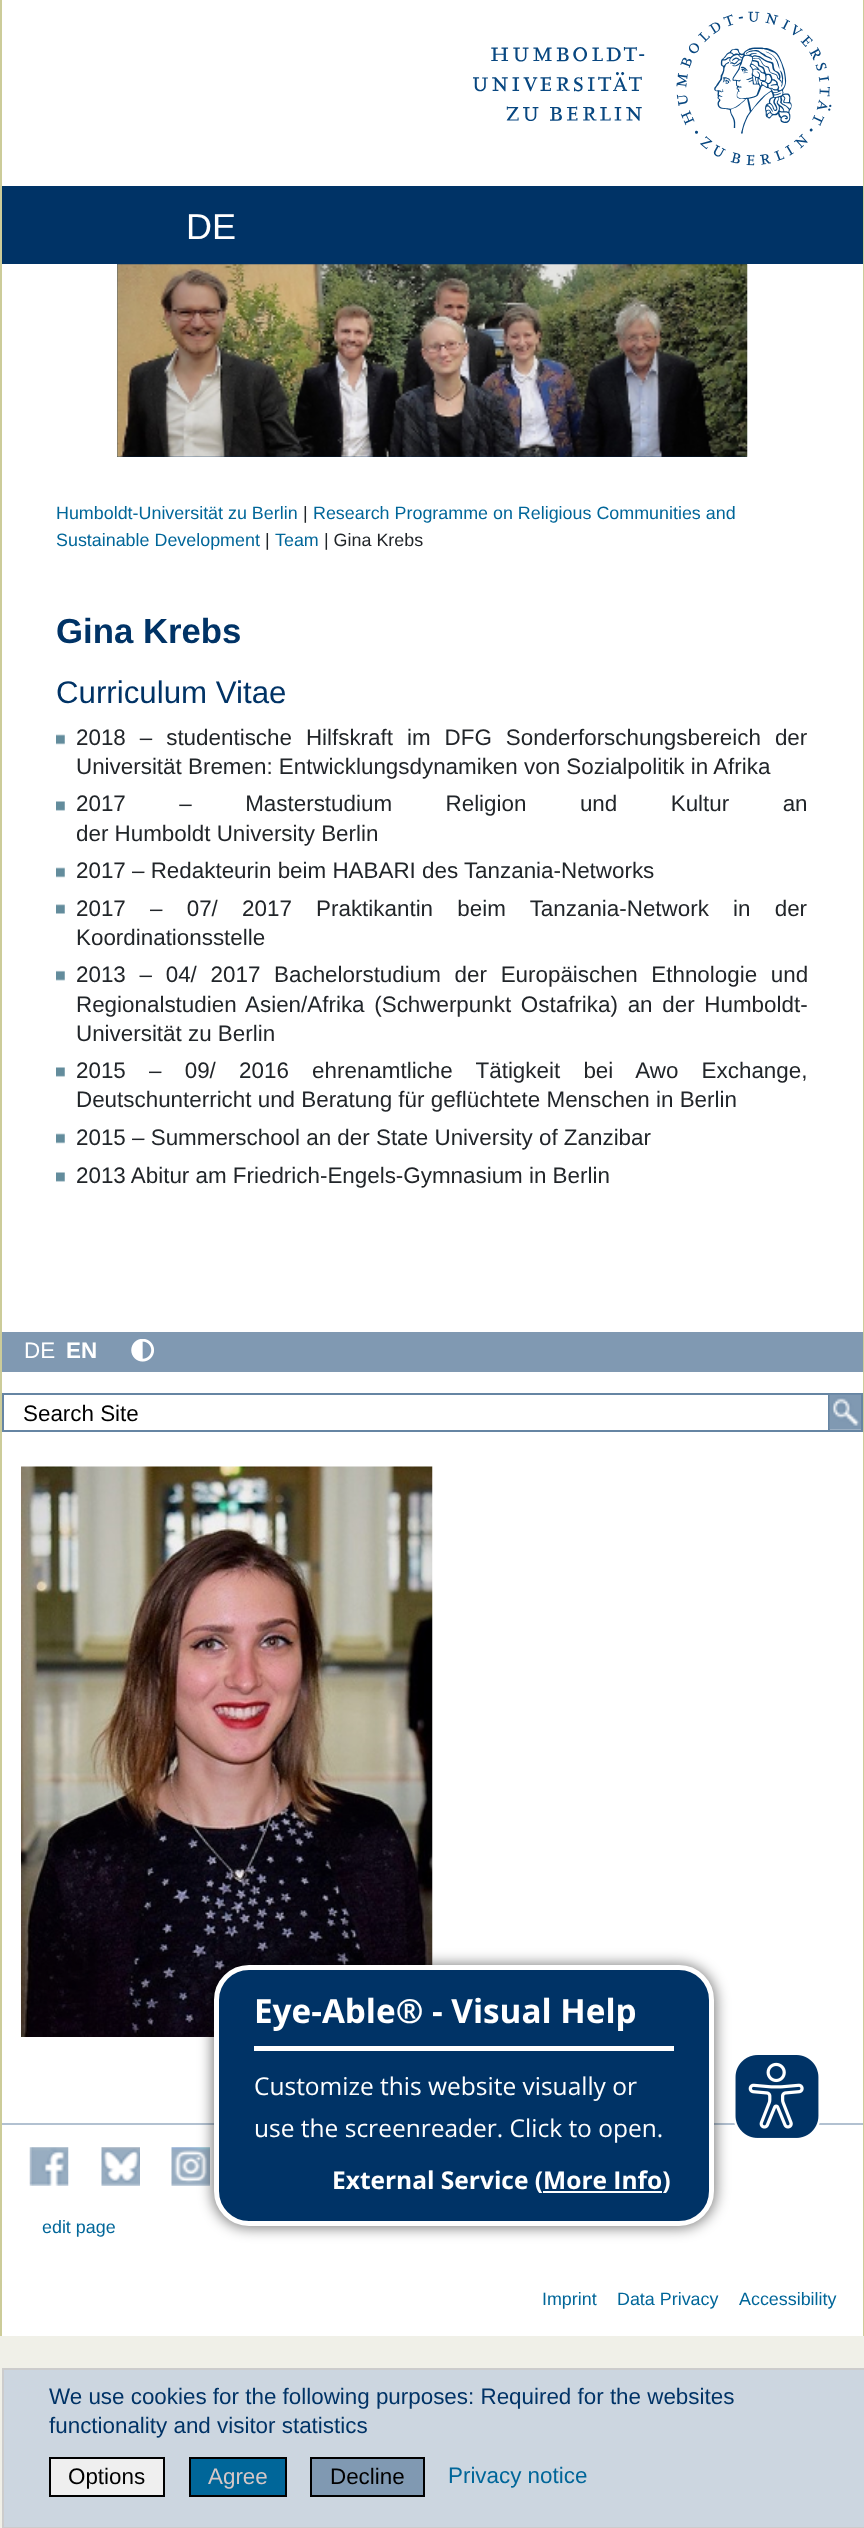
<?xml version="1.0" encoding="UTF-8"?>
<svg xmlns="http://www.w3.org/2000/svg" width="864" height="2528">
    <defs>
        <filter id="blur1" x="-50%" y="-200%" width="200%" height="500%"><feGaussianBlur stdDeviation="7"/></filter>
    </defs>
    <rect width="100%" height="100%" fill="#F0F0E8"/>
    <rect x="2" y="0" width="861" height="2336" fill="#FFFFFF"/>
    <image x="473" y="11" width="359" height="155" href="img_01.png"/>
    <rect x="2" y="186" width="861" height="78" fill="#003366"/>
    <text x="186" y="239" font-family="Liberation Sans" font-size="36" fill="#FFFFFF">DE</text>
    <rect x="117" y="264" width="630" height="193" fill="#003366"/>
    <image x="117" y="264" width="631" height="193" href="img_02.png"/>
    <rect x="863" y="0" width="1" height="2336" fill="#CCCC99"/>
    <rect x="0" y="0" width="2" height="2336" fill="#CCCC99"/>
    <text x="56" y="519" font-family="Liberation Sans" font-size="17.9" fill="#006699">Humboldt-Universität zu Berlin</text>
    <text x="303" y="519" font-family="Liberation Sans" font-size="17.9" fill="#212529">|</text>
    <text x="313" y="519" font-family="Liberation Sans" font-size="17.9" fill="#006699">Research Programme on Religious Communities and</text>
    <text x="56" y="546" font-family="Liberation Sans" font-size="17.9" fill="#006699">Sustainable Development</text>
    <text x="265" y="546" font-family="Liberation Sans" font-size="17.9" fill="#212529">|</text>
    <text x="275" y="546" font-family="Liberation Sans" font-size="17.9" fill="#006699">Team</text>
    <text x="324" y="546" font-family="Liberation Sans" font-size="17.9" fill="#212529">| Gina Krebs</text>
    <text x="56" y="643" font-family="Liberation Sans" font-size="34.75" font-weight="700" fill="#003366">Gina Krebs</text>
    <text x="56" y="703" font-family="Liberation Sans" font-size="31.25" fill="#003366">Curriculum Vitae</text>
    <image x="56" y="734" width="9" height="11" href="img_03.png"/>
    <text font-family="Liberation Sans" font-size="22.4" fill="#212529">
        <tspan x="76" y="745" word-spacing="7.75">2018 – studentische Hilfskraft im DFG Sonderforschungsbereich der</tspan>
        <tspan x="76" y="774">Universität Bremen: Entwicklungsdynamiken von Sozialpolitik in Afrika</tspan>
    </text>
    <image x="56" y="801" width="9" height="10" href="img_04.png"/>
    <text font-family="Liberation Sans" font-size="22.4" fill="#212529">
        <tspan x="76" y="811" word-spacing="47.25">2017 – Masterstudium Religion und Kultur an</tspan>
        <tspan x="76" y="841">der Humboldt University Berlin</tspan>
    </text>
    <image x="56" y="867" width="9" height="11" href="img_03.png"/>
    <text x="76" y="878" font-family="Liberation Sans" font-size="22.4" fill="#212529">2017 – Redakteurin beim HABARI des Tanzania-Networks</text>
    <image x="56" y="904" width="9" height="10" href="img_05.png"/>
    <text font-family="Liberation Sans" font-size="22.4" fill="#212529">
        <tspan x="76" y="916" word-spacing="18">2017 – 07/ 2017 Praktikantin beim Tanzania-Network in der</tspan>
        <tspan x="76" y="945">Koordinationsstelle</tspan>
    </text>
    <image x="56" y="970" width="9" height="11" href="img_06.png"/>
    <text font-family="Liberation Sans" font-size="22.4" fill="#212529">
        <tspan x="76" y="982" word-spacing="7.5">2013 – 04/ 2017 Bachelorstudium der Europäischen Ethnologie und</tspan>
        <tspan x="76" y="1012" word-spacing="3.5">Regionalstudien Asien/Afrika (Schwerpunkt Ostafrika) an der Humboldt-</tspan>
        <tspan x="76" y="1041">Universität zu Berlin</tspan>
    </text>
    <image x="56" y="1067" width="9" height="10" href="img_04.png"/>
    <text font-family="Liberation Sans" font-size="22.4" fill="#212529">
        <tspan x="76" y="1078" word-spacing="17">2015 – 09/ 2016 ehrenamtliche Tätigkeit bei Awo Exchange,</tspan>
        <tspan x="76" y="1107">Deutschunterricht und Beratung für geflüchtete Menschen in Berlin</tspan>
    </text>
    <image x="56" y="1133" width="9" height="11" href="img_03.png"/>
    <text x="76" y="1145" font-family="Liberation Sans" font-size="22.4" fill="#212529">2015 – Summerschool an der State University of Zanzibar</text>
    <image x="56" y="1172" width="9" height="10" href="img_04.png"/>
    <text x="76" y="1183" font-family="Liberation Sans" font-size="22.4" fill="#212529">2013 Abitur am Friedrich-Engels-Gymnasium in Berlin</text>
    <rect x="2" y="1332" width="861" height="40" fill="#8099B2"/>
    <text x="24" y="1358" font-family="Liberation Sans" font-size="22.4" fill="#FFFFFF">DE</text>
    <text x="66" y="1358" font-family="Liberation Sans" font-size="22.4" font-weight="700" fill="#FFFFFF">EN</text>
    <image x="131" y="1339" width="23" height="23" href="img_07.png"/>
    <rect x="3" y="1394" width="859" height="37" fill="none" stroke="#6685A3" stroke-width="2"/>
    <text x="23" y="1421" font-family="Liberation Sans" font-size="22.4" fill="#000000">Search Site</text>
    <rect x="829" y="1394" width="33" height="37" fill="none" stroke="#6685A3" stroke-width="2"/>
    <image x="829" y="1394" width="32" height="36" href="img_08.png"/>
    <image x="21" y="1466" width="412" height="571" href="img_09.png"/>
    <rect x="2" y="2123" width="861" height="2" fill="#B2C1D1"/>
    <image x="171" y="2147" width="39" height="39" href="img_13.png"/>
    <rect x="212" y="1964" width="504" height="264" rx="37" fill="#000000" fill-opacity="0.5" filter="url(#blur1)"/>
    <rect x="216.5" y="1967.5" width="495" height="256" rx="32.5" fill="#003366" stroke="#FFFFFF" stroke-width="5"/>
    <rect x="254" y="2046" width="420" height="5" fill="#FFFFFF"/>
    <text x="254" y="2023" font-family="Open Sans" font-size="33.25" font-weight="700" fill="#FFFFFF">Eye-Able® - Visual Help</text>
    <text font-family="Open Sans" font-size="24.5" fill="#FFFFFF">
        <tspan x="254" y="2095">Customize this website visually or</tspan>
        <tspan x="254" y="2137">use the screenreader. Click to open.</tspan>
    </text>
    <text x="332" y="2189" font-family="Open Sans" font-size="24.5" font-weight="700" fill="#FFFFFF">External Service (More Info)</text>
    <rect x="543" y="2191" width="119" height="2" fill="#FFFFFF"/>
    <image x="734" y="2055" width="86" height="83" href="img_10.png"/>
    <image x="29" y="2147" width="40" height="39" href="img_11.png"/>
    <image x="101" y="2147" width="39" height="39" href="img_12.png"/>
    <text x="42" y="2233" font-family="Liberation Sans" font-size="17.9" fill="#006699">edit page</text>
    <text x="542" y="2305" font-family="Liberation Sans" font-size="17.9" fill="#006699">Imprint</text>
    <text x="617" y="2305" font-family="Liberation Sans" font-size="17.9" fill="#006699">Data Privacy</text>
    <text x="739" y="2305" font-family="Liberation Sans" font-size="17.9" fill="#006699">Accessibility</text>
    <rect x="3" y="2369" width="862" height="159" fill="#CCD6E0" stroke="#CCCCCC" stroke-width="2"/>
    <text font-family="Liberation Sans" font-size="22.4" fill="#003366">
        <tspan x="49" y="2404">We use cookies for the following purposes: Required for the websites</tspan>
        <tspan x="49" y="2433">functionality and visitor statistics</tspan>
    </text>
    <rect x="50" y="2458" width="114" height="38" fill="#EFEFEF" stroke="#000000" stroke-width="2"/>
    <text x="68" y="2484" font-family="Liberation Sans" font-size="22.4" fill="#000000">Options</text>
    <rect x="190" y="2458" width="96" height="38" fill="#006699" stroke="#000000" stroke-width="2"/>
    <text x="208" y="2484" font-family="Liberation Sans" font-size="22.4" fill="#D5C7C7">Agree</text>
    <rect x="311" y="2458" width="113" height="38" fill="#8099B2" stroke="#000000" stroke-width="2"/>
    <text x="330" y="2484" font-family="Liberation Sans" font-size="22.4" fill="#000000">Decline</text>
    <text x="448" y="2483" font-family="Liberation Sans" font-size="22.4" fill="#006699">Privacy notice</text>
</svg>
